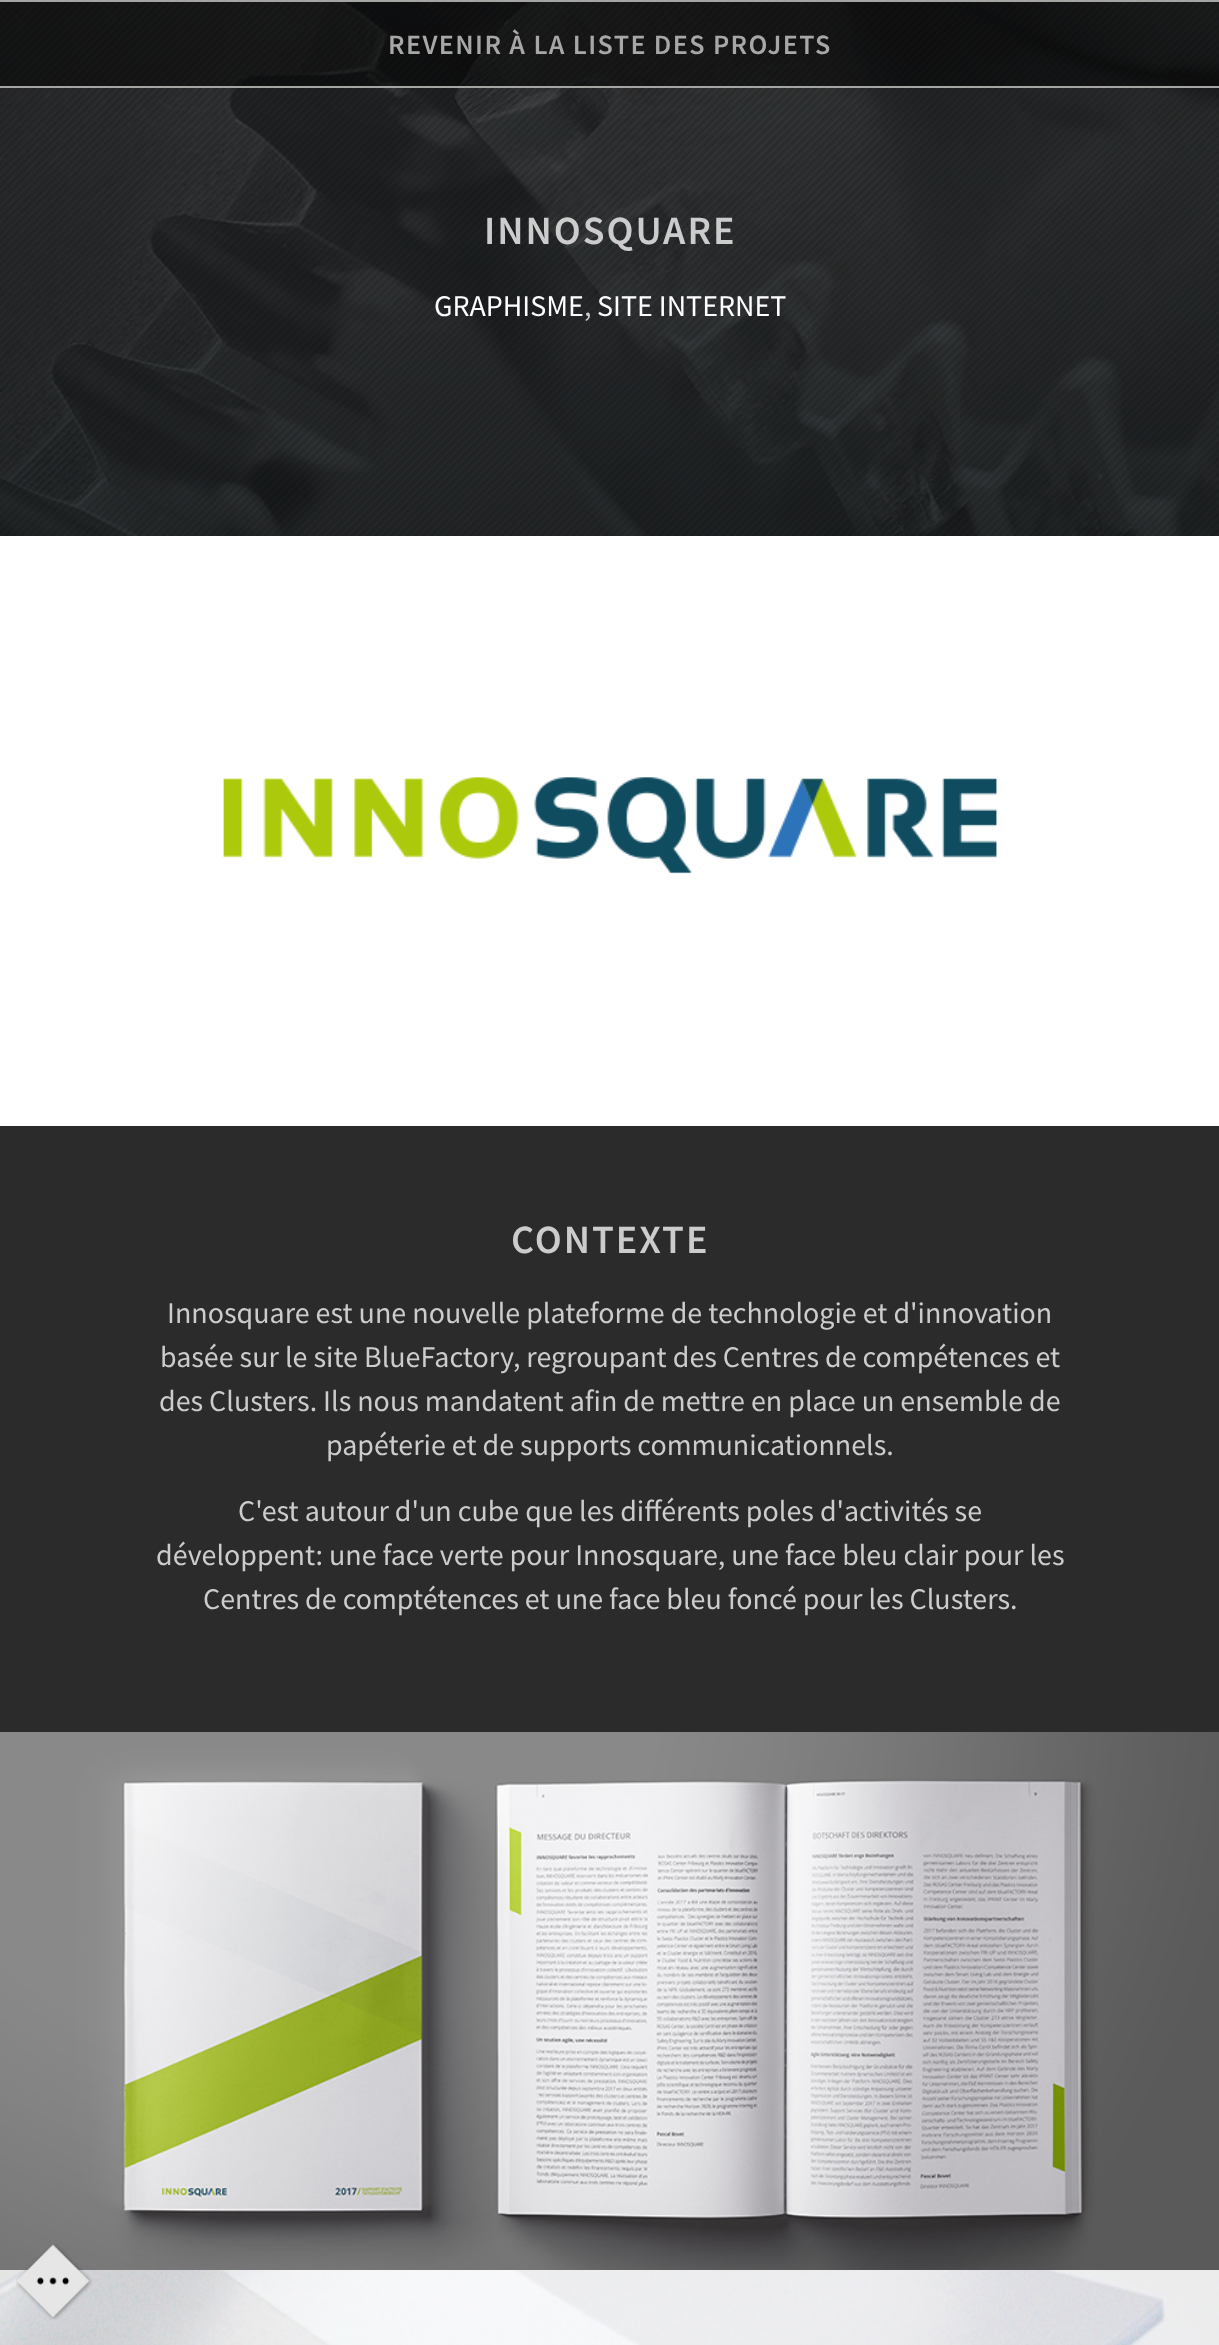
<?xml version="1.0" encoding="UTF-8"?>
<svg xmlns="http://www.w3.org/2000/svg" width="1219" height="2345">
    <rect width="100%" height="100%" fill="#FFFFFF"/>
    <image x="0" y="2" width="1219" height="534" href="img_01.png"/>
    <rect x="0" y="2" width="1219" height="84" fill="#000000" fill-opacity="0.5"/>
    <rect x="0" y="0" width="1219" height="2" fill="#A5A5A4"/>
    <rect x="0" y="86" width="1219" height="2" fill="#A5A5A4"/>
    <text x="388" y="54" font-family="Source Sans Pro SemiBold" font-size="28" font-weight="600" letter-spacing="1.4" fill="#A7A7A7">REVENIR À LA LISTE DES PROJETS</text>
    <text x="484" y="244" font-family="Source Sans Pro SemiBold" font-size="40" font-weight="600" letter-spacing="2" fill="#CCCCCC">INNOSQUARE</text>
    <text x="434" y="316" font-family="Source Sans Pro" font-size="30" fill="#FFFFFF">GRAPHISME</text>
    <text x="584" y="316" font-family="Source Sans Pro" font-size="30" fill="#CCCCCC">,</text>
    <text x="597" y="316" font-family="Source Sans Pro" font-size="30" fill="#FFFFFF">SITE INTERNET</text>
    <image x="223" y="777" width="774" height="97" href="img_02.png"/>
    <rect x="0" y="1126" width="1219" height="606" fill="#2B2B2B"/>
    <text x="511" y="1253" font-family="Source Sans Pro SemiBold" font-size="40" font-weight="600" letter-spacing="2" fill="#CCCCCC">CONTEXTE</text>
    <text x="167" y="1323" font-family="Source Sans Pro" font-size="30" fill="#CCCCCC">Innosquare est une nouvelle plateforme de technologie et d'innovation</text>
    <text x="160" y="1367" font-family="Source Sans Pro" font-size="30" fill="#CCCCCC">basée sur le site BlueFactory, regroupant des Centres de compétences et</text>
    <text x="159" y="1411" font-family="Source Sans Pro" font-size="30" fill="#CCCCCC">des Clusters. Ils nous mandatent afin de mettre en place un ensemble de</text>
    <text x="326" y="1455" font-family="Source Sans Pro" font-size="30" fill="#CCCCCC">papéterie et de supports communicationnels.</text>
    <text x="238" y="1521" font-family="Source Sans Pro" font-size="30" fill="#CCCCCC">C'est autour d'un cube que les différents poles d'activités se</text>
    <text x="156" y="1565" font-family="Source Sans Pro" font-size="30" fill="#CCCCCC">développent: une face verte pour Innosquare, une face bleu clair pour les</text>
    <text x="203" y="1609" font-family="Source Sans Pro" font-size="30" fill="#CCCCCC">Centres de comptétences et une face bleu foncé pour les Clusters.</text>
    <image x="0" y="1732" width="1219" height="538" href="img_03.png"/>
    <image x="0" y="2270" width="1219" height="75" href="img_04.png"/>
    <image x="16" y="2244" width="77" height="77" href="img_05.png"/>
</svg>
